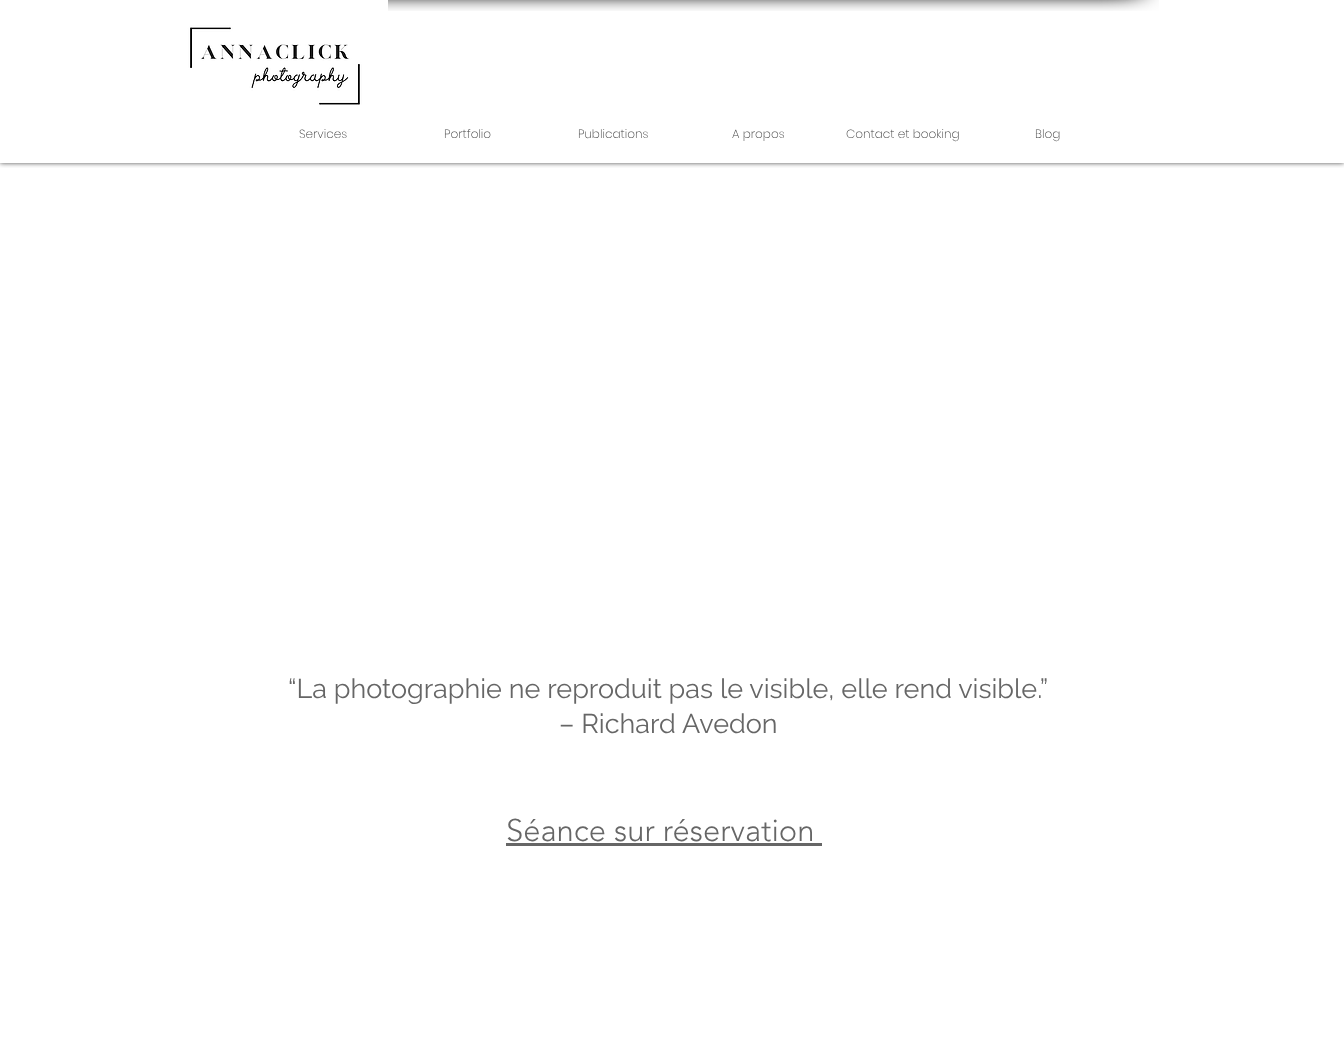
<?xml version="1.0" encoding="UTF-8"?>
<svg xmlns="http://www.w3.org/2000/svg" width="1344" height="1038">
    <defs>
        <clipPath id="clip1"><rect x="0" y="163" width="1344" height="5"/></clipPath>
        <filter id="blur1" x="-50%" y="-200%" width="200%" height="500%"><feGaussianBlur stdDeviation="2.5"/></filter>
    </defs>
    <rect width="100%" height="100%" fill="#FFFFFF"/>
    <image x="388" y="0" width="674" height="11" href="img_01.png"/>
    <image x="1062" y="0" width="97" height="11" href="img_02.png"/>
    <g clip-path="url(#clip1)">
        <rect x="0" y="0" width="1344" height="163" fill="#000000" fill-opacity="0.7" filter="url(#blur1)"/>
    </g>
    <image x="184" y="0" width="204" height="105" href="img_03.png"/>
    <text x="299" y="138" font-family="Poppins" font-size="12" font-weight="200" fill="#444444">Services</text>
    <text x="444" y="138" font-family="Poppins" font-size="12" font-weight="200" fill="#444444">Portfolio</text>
    <text x="578" y="138" font-family="Poppins" font-size="12" font-weight="200" fill="#444444">Publications</text>
    <text x="732" y="138" font-family="Poppins" font-size="12" font-weight="200" fill="#444444">A propos</text>
    <text x="846" y="138" font-family="Poppins" font-size="12" font-weight="200" fill="#444444">Contact et booking</text>
    <text x="1035" y="138" font-family="Poppins" font-size="12" font-weight="200" fill="#444444">Blog</text>
    <text x="288" y="698" font-family="Raleway" font-size="27" fill="#666666">“La photographie ne reproduit pas le visible, elle rend visible.”</text>
    <text x="559" y="733" font-family="Raleway" font-size="27" fill="#666666">– Richard Avedon</text>
    <text x="506" y="841" font-family="'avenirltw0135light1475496'" font-size="31" font-weight="300" fill="#666666">Séance sur réservation</text>
    <rect x="506" y="843" width="316" height="3" fill="#666666"/>
</svg>
